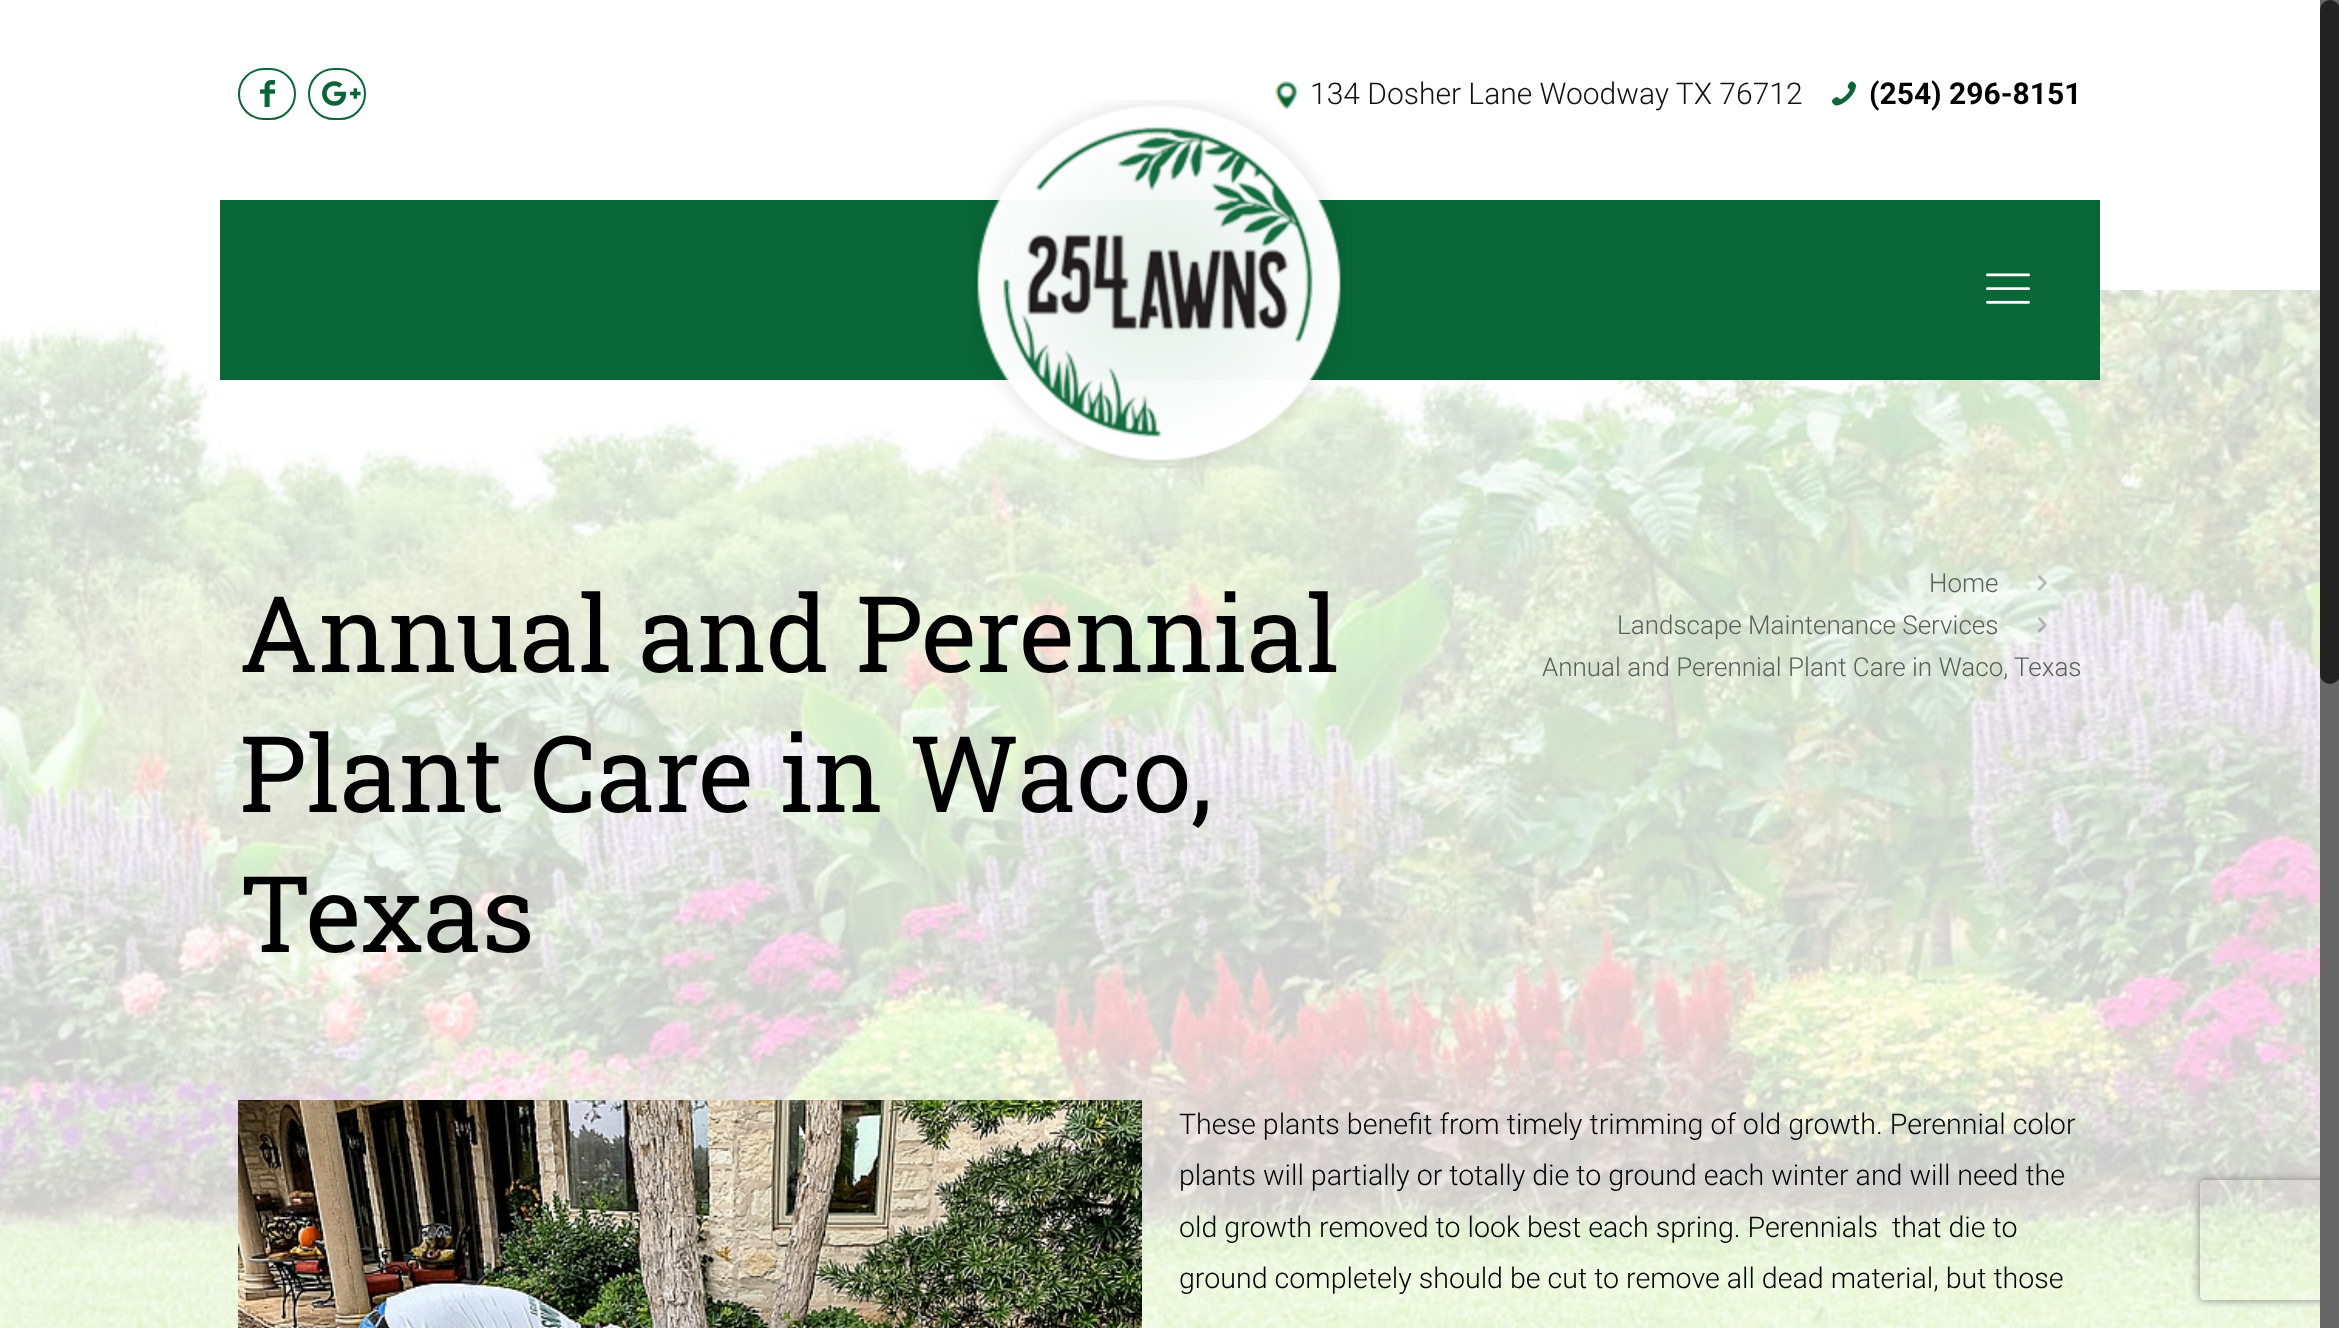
<?xml version="1.0" encoding="UTF-8"?>
<svg xmlns="http://www.w3.org/2000/svg" width="2339" height="1328">
    <defs>
        <clipPath id="clip1"><path d="M 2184 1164 H 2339 V 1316 H 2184 Z M 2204 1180 H 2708 C 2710 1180 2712 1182 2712 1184 V 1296 C 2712 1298 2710 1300 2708 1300 H 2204 C 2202 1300 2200 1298 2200 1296 V 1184 C 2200 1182 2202 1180 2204 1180 Z" clip-rule="evenodd"/></clipPath>
        <filter id="blur1" x="-50%" y="-200%" width="200%" height="500%"><feGaussianBlur stdDeviation="5"/></filter>
    </defs>
    <rect width="100%" height="100%" fill="#FFFFFF"/>
    <image x="0" y="290" width="2320" height="1038" href="img_01.png"/>
    <rect x="239" y="69" width="56" height="50" rx="25" fill="none" stroke="#096737" stroke-width="2"/>
    <image x="260" y="80" width="15" height="27" href="img_02.png"/>
    <rect x="309" y="69" width="56" height="50" rx="25" fill="none" stroke="#096737" stroke-width="2"/>
    <image x="322" y="81" width="39" height="25" href="img_03.png"/>
    <image x="1274" y="80" width="26" height="30" href="img_04.png"/>
    <text x="1310" y="104" font-family="Roboto" font-size="30" font-weight="300" fill="#111111">134 Dosher Lane Woodway TX 76712</text>
    <image x="1832" y="81" width="24" height="25" href="img_05.png"/>
    <text x="1869" y="104" font-family="Roboto" font-size="30" font-weight="700" fill="#000000">(254) 296-8151</text>
    <rect x="220" y="200" width="1880" height="180" fill="#096737"/>
    <image x="973" y="100" width="372" height="368" href="img_06.png"/>
    <image x="1986" y="273" width="44" height="31" href="img_07.png"/>
    <text font-family="Roboto Slab" font-size="106" fill="#000000">
        <tspan x="239" y="672">Annual and Perennial</tspan>
        <tspan x="239" y="812">Plant Care in Waco,</tspan>
        <tspan x="239" y="952">Texas</tspan>
    </text>
    <text x="1929" y="592" font-family="Roboto" font-size="26" font-weight="300" fill="#5A5F5A">Home</text>
    <image x="2038" y="575" width="9" height="16" href="img_08.png"/>
    <text x="1617" y="634" font-family="Roboto" font-size="26" font-weight="300" fill="#5A5F5A">Landscape Maintenance Services</text>
    <image x="2038" y="617" width="9" height="16" href="img_09.png"/>
    <text x="1542" y="676" font-family="Roboto" font-size="26" font-weight="300" fill="#5A5F5A">Annual and Perennial Plant Care in Waco, Texas</text>
    <image x="238" y="1100" width="904" height="228" href="img_10.png"/>
    <text font-family="Roboto" font-size="28.6" font-weight="300" fill="#000000" xml:space="preserve"><tspan x="1179" y="1134">These plants benefit from timely trimming of old growth. Perennial color</tspan><tspan x="1179" y="1185">plants will partially or totally die to ground each winter and will need the</tspan><tspan x="1179" y="1237">old growth removed to look best each spring. Perennials  that die to</tspan><tspan x="1179" y="1288">ground completely should be cut to remove all dead material, but those</tspan></text>
    <g clip-path="url(#clip1)">
        <rect x="2200" y="1180" width="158" height="120" rx="4" fill="#808080" filter="url(#blur1)"/>
    </g>
    <rect x="2320" y="0" width="19" height="1328" fill="#666666"/>
    <rect x="2320" y="0" width="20" height="684" rx="10" fill="#222222"/>
</svg>
